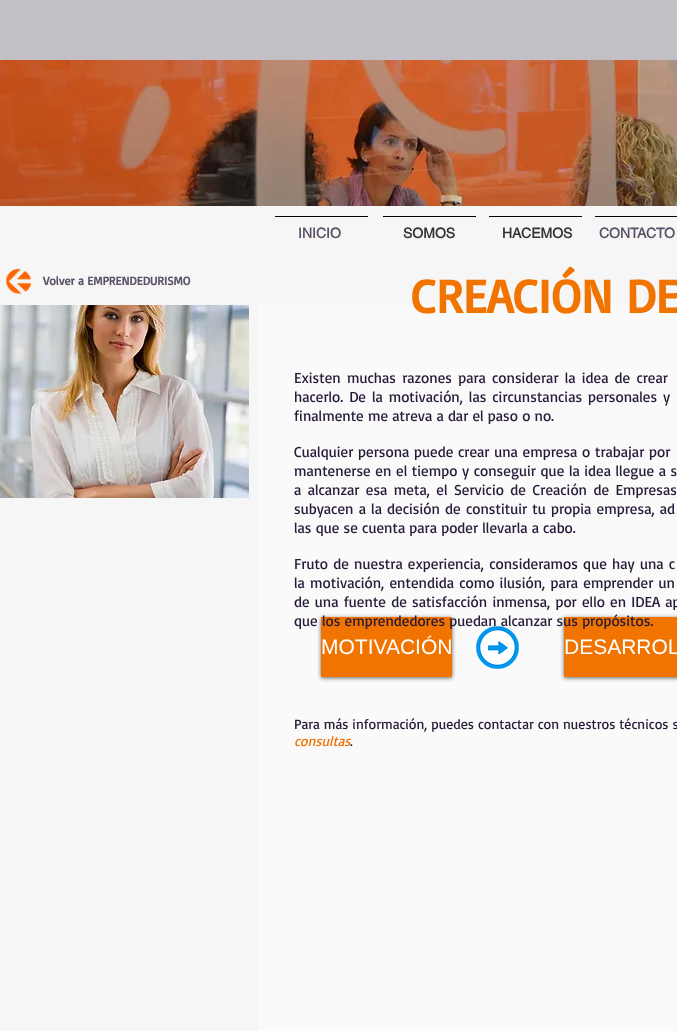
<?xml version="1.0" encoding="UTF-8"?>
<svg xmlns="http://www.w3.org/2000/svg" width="677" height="1031">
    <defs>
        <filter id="blur1" x="-50%" y="-200%" width="200%" height="500%"><feGaussianBlur stdDeviation="2"/></filter>
    </defs>
    <rect width="100%" height="100%" fill="#F6F6F6"/>
    <rect x="0" y="0" width="677" height="60" fill="#C3BFC7"/>
    <image x="0" y="60" width="677" height="146" href="img_01.png"/>
    <rect x="275" y="216" width="93" height="1" fill="#000000"/>
    <rect x="383" y="216" width="93" height="1" fill="#000000"/>
    <rect x="489" y="216" width="93" height="1" fill="#000000"/>
    <rect x="595" y="216" width="82" height="1" fill="#000000"/>
    <text x="298" y="238" font-family="helvetica" font-size="14" font-weight="700" fill="#5C5168">INICIO</text>
    <text x="403" y="238" font-family="helvetica" font-size="14" font-weight="700" fill="#333333">SOMOS</text>
    <text x="502" y="238" font-family="helvetica" font-size="14" font-weight="700" fill="#333333">HACEMOS</text>
    <text x="599" y="238" font-family="helvetica" font-size="14" font-weight="700" fill="#5C5168">CONTACTO</text>
    <image x="5" y="268" width="27" height="27" href="img_02.png"/>
    <text x="43" y="285" font-family="Basic" font-size="12" font-weight="700" fill="#5C5168">Volver a EMPRENDEDURISMO</text>
    <rect x="258" y="304" width="419" height="727" fill="#FAFAFA"/>
    <text x="411" y="313" font-family="Basic" font-size="48" font-weight="700" fill="#F17300">CREACIÓN DE</text>
    <image x="0" y="305" width="249" height="193" href="img_03.png"/>
    <text font-family="Basic" font-size="15" fill="#281A39">
        <tspan x="294" y="383" word-spacing="2">Existen muchas razones para considerar la idea de crear</tspan>
        <tspan x="294" y="402" word-spacing="1.75">hacerlo. De la motivación, las circunstancias personales y</tspan>
        <tspan x="294" y="421">finalmente me atreva a dar el paso o no.</tspan>
    </text>
    <text font-family="Basic" font-size="15" fill="#281A39">
        <tspan x="294" y="457" word-spacing="0.5">Cualquier persona puede crear una empresa o trabajar por</tspan>
        <tspan x="294" y="476" word-spacing="0.4">mantenerse en el tiempo y conseguir que la idea llegue a s</tspan>
        <tspan x="294" y="495" word-spacing="2.25">a alcanzar esa meta, el Servicio de Creación de Empresas</tspan>
        <tspan x="294" y="514" word-spacing="1">subyacen a la decisión de constituir tu propia empresa, ad</tspan>
        <tspan x="294" y="533">las que se cuenta para poder llevarla a cabo.</tspan>
    </text>
    <text font-family="Basic" font-size="15" fill="#281A39">
        <tspan x="294" y="569" word-spacing="1">Fruto de nuestra experiencia, consideramos que hay una c</tspan>
        <tspan x="294" y="588" word-spacing="1">la motivación, entendida como ilusión, para emprender un</tspan>
        <tspan x="294" y="607" word-spacing="1">de una fuente de satisfacción inmensa, por ello en IDEA ap</tspan>
    </text>
    <rect x="321" y="618" width="131" height="60" fill="#000000" fill-opacity="0.6" filter="url(#blur1)"/>
    <rect x="321" y="617" width="131" height="60" fill="#F17300"/>
    <image x="476" y="626" width="43" height="43" href="img_04.png"/>
    <rect x="564" y="618" width="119" height="60" fill="#000000" fill-opacity="0.6" filter="url(#blur1)"/>
    <rect x="564" y="617" width="113" height="60" fill="#F17300"/>
    <text x="294" y="626" font-family="Basic" font-size="15" fill="#281A39">que los emprendedores puedan alcanzar sus propósitos.</text>
    <text x="321" y="654" font-family="Liberation Sans" font-size="21" fill="#FFFFFF">MOTIVACIÓN</text>
    <text x="564" y="654" font-family="Liberation Sans" font-size="21" fill="#FFFFFF">DESARROL</text>
    <text x="294" y="729" font-family="Basic" font-size="14" fill="#281A39">Para más información, puedes contactar con nuestros técnicos s</text>
    <text x="294" y="746" font-family="Basic" font-size="14" font-style="italic" fill="#F17300">consultas</text>
    <text x="350" y="746" font-family="Basic" font-size="14" fill="#281A39">.</text>
</svg>
